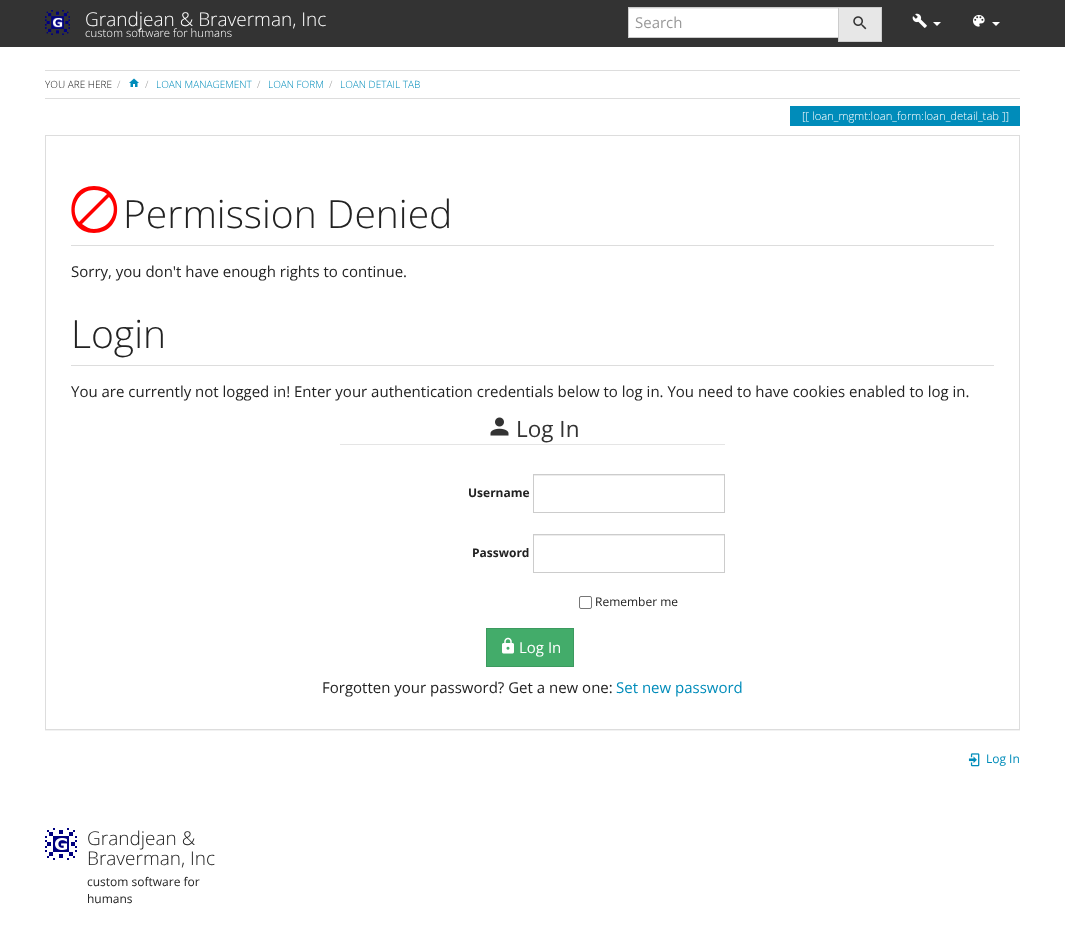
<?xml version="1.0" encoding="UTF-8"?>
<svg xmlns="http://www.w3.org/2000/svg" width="1065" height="925">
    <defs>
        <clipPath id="clip1"><rect x="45" y="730" width="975" height="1"/></clipPath>
        <filter id="blur1" x="-50%" y="-200%" width="200%" height="500%"><feGaussianBlur stdDeviation="0.5"/></filter>
    </defs>
    <rect width="100%" height="100%" fill="#FFFFFF"/>
    <rect x="0" y="0" width="1065" height="47" fill="#333333"/>
    <image x="45" y="10" width="25" height="25" href="img_01.png"/>
    <text x="85" y="26" font-family="Open Sans" font-size="19" font-weight="300" fill="#FFFFFF">Grandjean &amp; Braverman, Inc</text>
    <text x="85" y="37" font-family="Open Sans" font-size="11.4" font-weight="300" fill="#FFFFFF">custom software for humans</text>
    <rect x="629" y="9" width="209" height="28" fill="#FFFFFF"/>
    <rect x="629" y="8" width="209" height="1" fill="#ECECEC"/>
    <rect x="628.5" y="7.5" width="210" height="30" fill="none" stroke="#CCCCCC"/>
    <text x="635" y="28" font-family="Open Sans" font-size="15" fill="#999999">Search</text>
    <rect x="838.5" y="7.5" width="43" height="34" fill="#E7E7E7" stroke="#CCCCCC"/>
    <image x="853" y="16" width="14" height="14" href="img_02.png"/>
    <image x="912" y="13" width="15" height="15" href="img_03.png"/>
    <path d="M 933 22 H 941 L 937 26 Z" fill="#FFFFFF"/>
    <image x="972" y="14" width="13" height="13" href="img_04.png"/>
    <path d="M 992 22 H 1000 L 996 26 Z" fill="#FFFFFF"/>
    <rect x="45" y="70" width="975" height="1" fill="#DDDDDD"/>
    <text x="45" y="88" font-family="Open Sans" font-size="10" font-weight="300" fill="#222222">YOU ARE HERE</text>
    <text x="117" y="88" font-family="Open Sans" font-size="10" font-weight="300" fill="#999999">/</text>
    <image x="129" y="78" width="10" height="9" href="img_05.png"/>
    <text x="145" y="88" font-family="Open Sans" font-size="10" font-weight="300" fill="#999999">/</text>
    <text x="156" y="88" font-family="Open Sans" font-size="10" font-weight="300" fill="#008CBA">LOAN MANAGEMENT</text>
    <text x="257" y="88" font-family="Open Sans" font-size="10" font-weight="300" fill="#999999">/</text>
    <text x="268" y="88" font-family="Open Sans" font-size="10" font-weight="300" fill="#008CBA">LOAN FORM</text>
    <text x="329" y="88" font-family="Open Sans" font-size="10" font-weight="300" fill="#999999">/</text>
    <text x="340" y="88" font-family="Open Sans" font-size="10" font-weight="300" fill="#008CBA">LOAN DETAIL TAB</text>
    <rect x="45" y="98" width="975" height="1" fill="#DDDDDD"/>
    <rect x="790" y="106" width="230" height="20" fill="#008CBA"/>
    <text x="802" y="120" font-family="Open Sans" font-size="11.25" font-weight="300" fill="#FFFFFF">[[ loan_mgmt:loan_form:loan_detail_tab ]]</text>
    <g clip-path="url(#clip1)">
        <rect x="45" y="136" width="975" height="595" fill="#000000" fill-opacity="0.05" filter="url(#blur1)"/>
    </g>
    <rect x="45.5" y="135.5" width="974" height="594" fill="none" stroke="#DDDDDD"/>
    <rect x="71" y="245" width="923" height="1" fill="#DDDDDD"/>
    <path d="M 94 186 C 125 186 125 233 94 233 C 64 233 64 186 94 186 M 94 190 C 78 190 69 209 79 222 L 107 194 C 103 191 99 190 94 190 M 94 229 C 111 229 120 209 109 197 L 82 224 C 86 227 90 229 94 229 Z" fill="#FF0000"/>
    <text x="123" y="228" font-family="Open Sans" font-size="39" font-weight="300" fill="#222222">Permission Denied</text>
    <text x="71" y="277" font-family="Open Sans" font-size="15" fill="#222222">Sorry, you don't have enough rights to continue.</text>
    <rect x="71" y="365" width="923" height="1" fill="#DDDDDD"/>
    <text x="71" y="348" font-family="Open Sans" font-size="39" font-weight="300" fill="#222222">Login</text>
    <text x="71" y="397" font-family="Open Sans" font-size="15" fill="#222222">You are currently not logged in! Enter your authentication credentials below to log in. You need to have cookies enabled to log in.</text>
    <rect x="340" y="444" width="385" height="1" fill="#E5E5E5"/>
    <image x="490" y="417" width="19" height="19" href="img_06.png"/>
    <text x="516" y="437" font-family="Open Sans" font-size="22.5" fill="#333333">Log In</text>
    <text x="468" y="497" font-family="Open Sans" font-size="12" font-weight="700" fill="#222222">Username</text>
    <rect x="534" y="475" width="190" height="1" fill="#ECECEC"/>
    <rect x="533.5" y="474.5" width="191" height="38" fill="none" stroke="#CCCCCC"/>
    <text x="472" y="557" font-family="Open Sans" font-size="12" font-weight="700" fill="#222222">Password</text>
    <rect x="534" y="535" width="190" height="1" fill="#ECECEC"/>
    <rect x="533.5" y="534.5" width="191" height="38" fill="none" stroke="#CCCCCC"/>
    <rect x="579.5" y="596.5" width="12" height="12" rx="1.5" fill="none" stroke="#767676"/>
    <text x="595" y="606" font-family="Open Sans" font-size="12" fill="#222222">Remember me</text>
    <rect x="486.5" y="628.5" width="87" height="38" fill="#43AC6A" stroke="#3C9A5F"/>
    <image x="502" y="637" width="12" height="17" href="img_07.png"/>
    <text x="519" y="653" font-family="Open Sans" font-size="15" fill="#FFFFFF">Log In</text>
    <text x="322" y="693" font-family="Open Sans" font-size="15" fill="#222222">Forgotten your password? Get a new one:</text>
    <text x="616" y="693" font-family="Open Sans" font-size="15" fill="#008CBA">Set new password</text>
    <image x="968" y="753" width="12" height="14" href="img_08.png"/>
    <text x="986" y="763" font-family="Open Sans" font-size="12" fill="#008CBA">Log In</text>
    <image x="45" y="828" width="32" height="32" href="img_09.png"/>
    <text font-family="Open Sans" font-size="19" font-weight="300" fill="#222222">
        <tspan x="87" y="845">Grandjean &amp;</tspan>
        <tspan x="87" y="865">Braverman, Inc</tspan>
    </text>
    <text font-family="Open Sans" font-size="12" fill="#222222">
        <tspan x="87" y="886">custom software for</tspan>
        <tspan x="87" y="903">humans</tspan>
    </text>
</svg>
